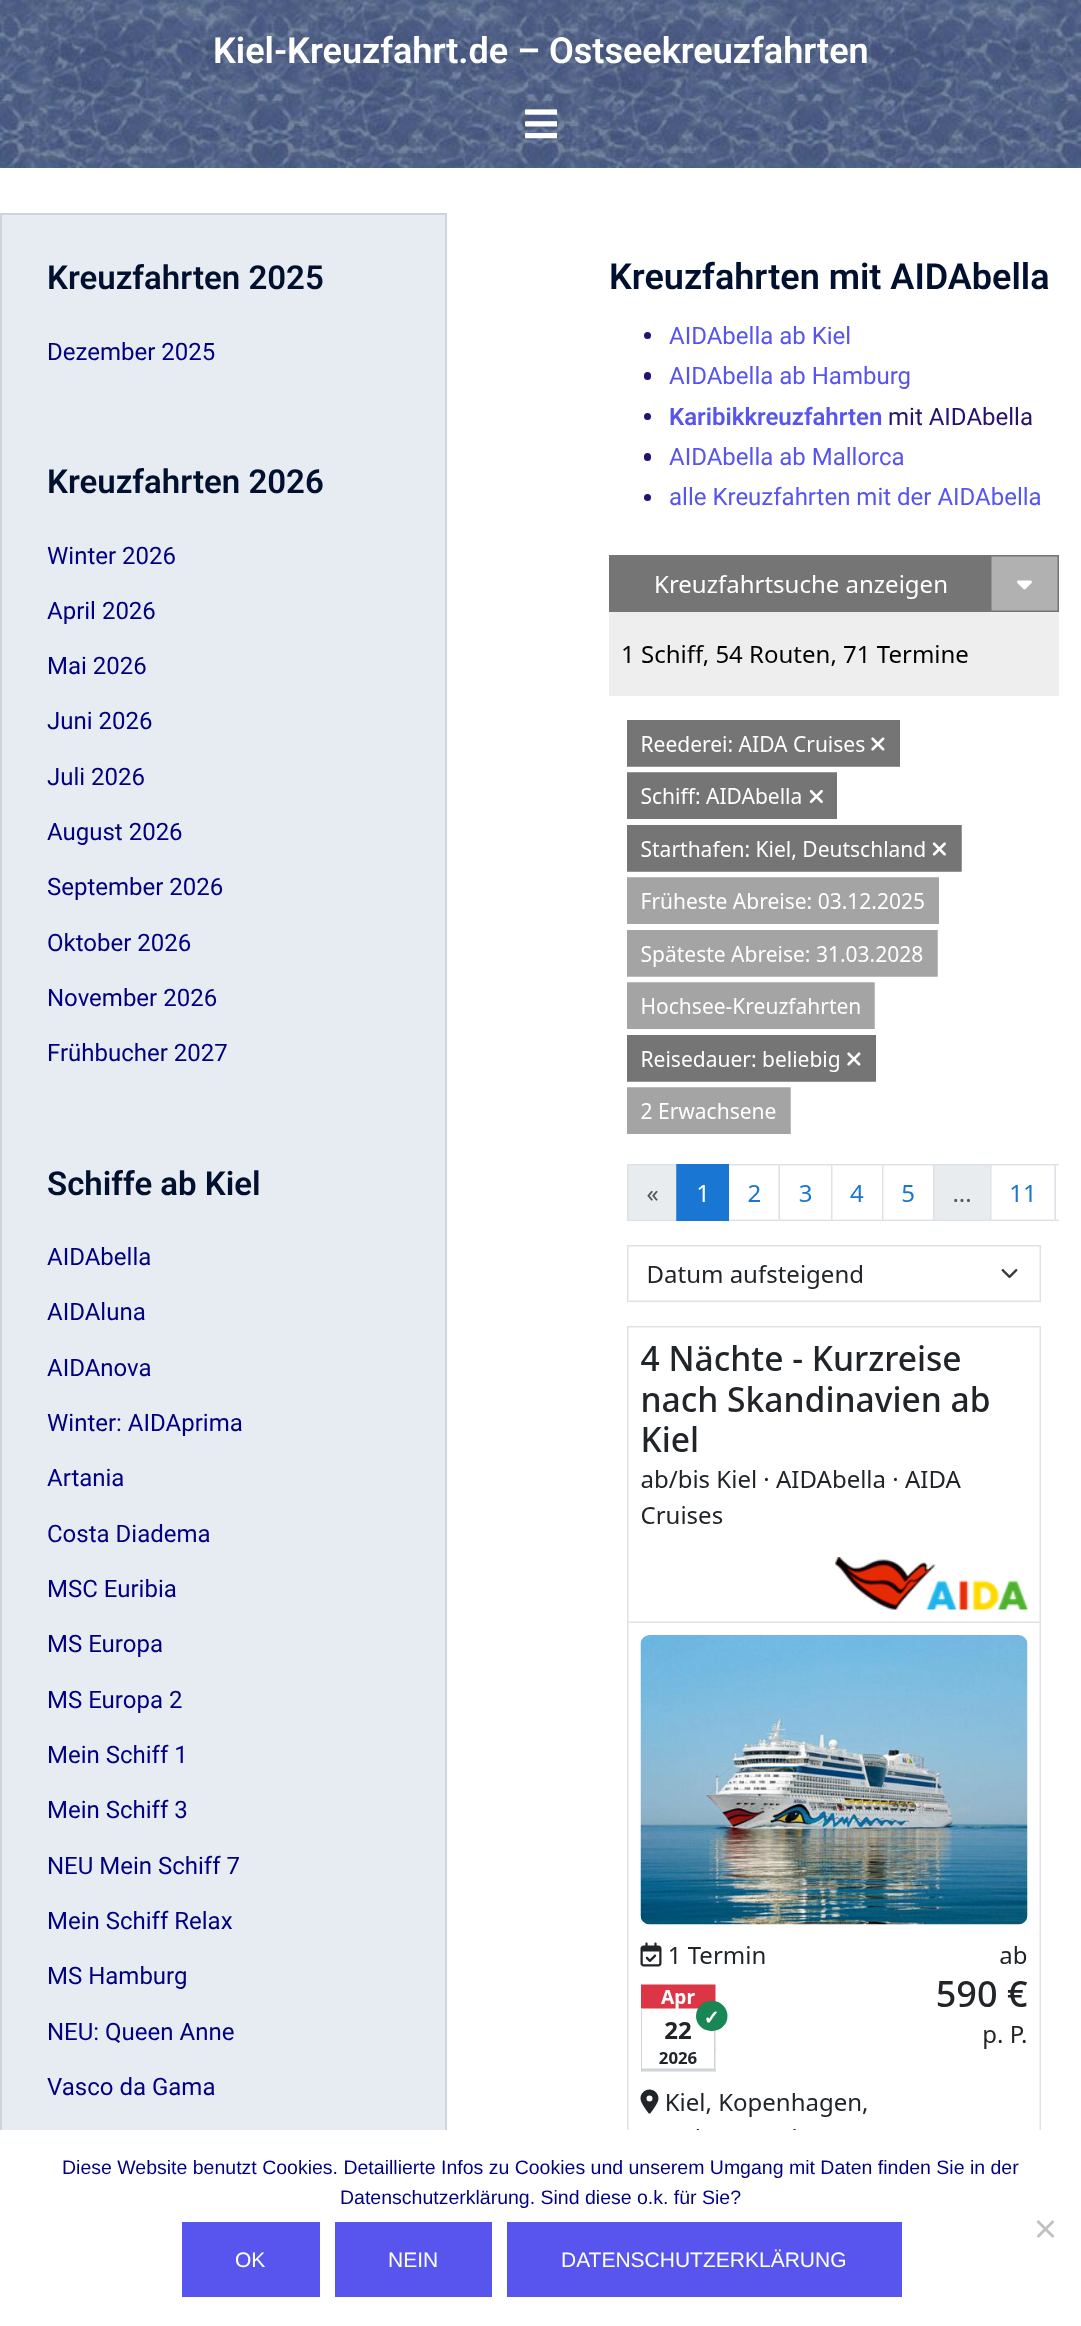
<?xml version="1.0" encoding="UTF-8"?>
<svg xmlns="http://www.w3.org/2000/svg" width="1081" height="2326">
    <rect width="100%" height="100%" fill="#FFFFFF"/>
    <image x="0" y="0" width="1081" height="168" href="img_01.png"/>
    <rect x="0" y="0" width="1081" height="168" fill="#000000" fill-opacity="0.3"/>
    <text x="213" y="63" font-family="Roboto" font-size="36" font-weight="600" fill="#FFFFFF">Kiel-Kreuzfahrt.de – Ostseekreuzfahrten</text>
    <image x="525" y="109" width="32" height="30" href="img_02.png"/>
    <rect x="2" y="215" width="443" height="1915" fill="#E6ECF2"/>
    <rect x="1" y="214" width="445" height="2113" fill="none" stroke="#CFD4DA" stroke-width="2"/>
    <text x="47" y="289" font-family="Roboto" font-size="33" font-weight="600" fill="#00102E">Kreuzfahrten 2025</text>
    <text x="47" y="360" font-family="Roboto" font-size="24" fill="#000080">Dezember 2025</text>
    <text x="47" y="493" font-family="Roboto" font-size="33" font-weight="600" fill="#00102E">Kreuzfahrten 2026</text>
    <text x="47" y="564" font-family="Roboto" font-size="24" fill="#000080">Winter 2026</text>
    <text x="47" y="619" font-family="Roboto" font-size="24" fill="#000080">April 2026</text>
    <text x="47" y="674" font-family="Roboto" font-size="24" fill="#000080">Mai 2026</text>
    <text x="47" y="729" font-family="Roboto" font-size="24" fill="#000080">Juni 2026</text>
    <text x="47" y="785" font-family="Roboto" font-size="24" fill="#000080">Juli 2026</text>
    <text x="47" y="840" font-family="Roboto" font-size="24" fill="#000080">August 2026</text>
    <text x="47" y="895" font-family="Roboto" font-size="24" fill="#000080">September 2026</text>
    <text x="47" y="951" font-family="Roboto" font-size="24" fill="#000080">Oktober 2026</text>
    <text x="47" y="1006" font-family="Roboto" font-size="24" fill="#000080">November 2026</text>
    <text x="47" y="1061" font-family="Roboto" font-size="24" fill="#000080">Frühbucher 2027</text>
    <text x="47" y="1195" font-family="Roboto" font-size="33" font-weight="600" fill="#00102E">Schiffe ab Kiel</text>
    <text x="47" y="1265" font-family="Roboto" font-size="24" fill="#000080">AIDAbella</text>
    <text x="47" y="1320" font-family="Roboto" font-size="24" fill="#000080">AIDAluna</text>
    <text x="47" y="1376" font-family="Roboto" font-size="24" fill="#000080">AIDAnova</text>
    <text x="47" y="1431" font-family="Roboto" font-size="24" fill="#000080">Winter: AIDAprima</text>
    <text x="47" y="1486" font-family="Roboto" font-size="24" fill="#000080">Artania</text>
    <text x="47" y="1542" font-family="Roboto" font-size="24" fill="#000080">Costa Diadema</text>
    <text x="47" y="1597" font-family="Roboto" font-size="24" fill="#000080">MSC Euribia</text>
    <text x="47" y="1652" font-family="Roboto" font-size="24" fill="#000080">MS Europa</text>
    <text x="47" y="1708" font-family="Roboto" font-size="24" fill="#000080">MS Europa 2</text>
    <text x="47" y="1763" font-family="Roboto" font-size="24" fill="#000080">Mein Schiff 1</text>
    <text x="47" y="1818" font-family="Roboto" font-size="24" fill="#000080">Mein Schiff 3</text>
    <text x="47" y="1874" font-family="Roboto" font-size="24" fill="#000080">NEU Mein Schiff 7</text>
    <text x="47" y="1929" font-family="Roboto" font-size="24" fill="#000080">Mein Schiff Relax</text>
    <text x="47" y="1984" font-family="Roboto" font-size="24" fill="#000080">MS Hamburg</text>
    <text x="47" y="2040" font-family="Roboto" font-size="24" fill="#000080">NEU: Queen Anne</text>
    <text x="47" y="2095" font-family="Roboto" font-size="24" fill="#000080">Vasco da Gama</text>
    <text x="609" y="289" font-family="Roboto" font-size="36" font-weight="600" fill="#00102E">Kreuzfahrten mit AIDAbella</text>
    <circle cx="647.5" cy="335.5" r="3.5" fill="#261172"/>
    <text x="669" y="344" font-family="Roboto" font-size="24" fill="#5755ED">AIDAbella ab Kiel</text>
    <rect x="644" y="372" width="7" height="8" rx="3.5" fill="#261172"/>
    <text x="669" y="384" font-family="Roboto" font-size="24" fill="#5755ED">AIDAbella ab Hamburg</text>
    <circle cx="647.5" cy="416.5" r="3.5" fill="#261172"/>
    <text x="669" y="425" font-family="Roboto" font-size="24" font-weight="600" fill="#5755ED">Karibikkreuzfahrten</text>
    <text x="888" y="425" font-family="Roboto" font-size="24" fill="#261172">mit AIDAbella</text>
    <rect x="644" y="453" width="7" height="8" rx="3.5" fill="#261172"/>
    <text x="669" y="465" font-family="Roboto" font-size="24" fill="#5755ED">AIDAbella ab Mallorca</text>
    <circle cx="647.5" cy="497.5" r="3.5" fill="#261172"/>
    <text x="669" y="505" font-family="Roboto" font-size="24" fill="#5755ED">alle Kreuzfahrten mit der AIDAbella</text>
    <image x="609" y="555" width="450" height="1575" href="img_03.png"/>
    <rect x="0" y="2130" width="447" height="196" fill="#FFFFFF"/>
    <text x="62" y="2174" font-family="Liberation Sans" font-size="19.5" fill="#000080">Diese Website benutzt Cookies. Detaillierte Infos zu Cookies und unserem Umgang mit Daten finden Sie in der</text>
    <text x="340" y="2204" font-family="Liberation Sans" font-size="19.5" fill="#000080">Datenschutzerklärung. Sind diese o.k. für Sie?</text>
    <path d="M 1052.5 2220 L 1054.5 2222 L 1038.5 2238 L 1036.5 2236 Z" fill="#C0C0C0"/>
    <path d="M 1036.5 2222 L 1038.5 2220 L 1054.5 2236 L 1052.5 2238 Z" fill="#C0C0C0"/>
    <rect x="182" y="2222" width="138" height="75" fill="#5755ED"/>
    <text x="235" y="2267" font-family="Liberation Sans" font-size="21" fill="#FFFFFF">OK</text>
    <rect x="335" y="2222" width="157" height="75" fill="#5755ED"/>
    <text x="388" y="2267" font-family="Liberation Sans" font-size="21" fill="#FFFFFF">NEIN</text>
    <rect x="507" y="2222" width="395" height="75" fill="#5755ED"/>
    <text x="561" y="2267" font-family="Liberation Sans" font-size="21" fill="#FFFFFF">DATENSCHUTZERKLÄRUNG</text>
</svg>
